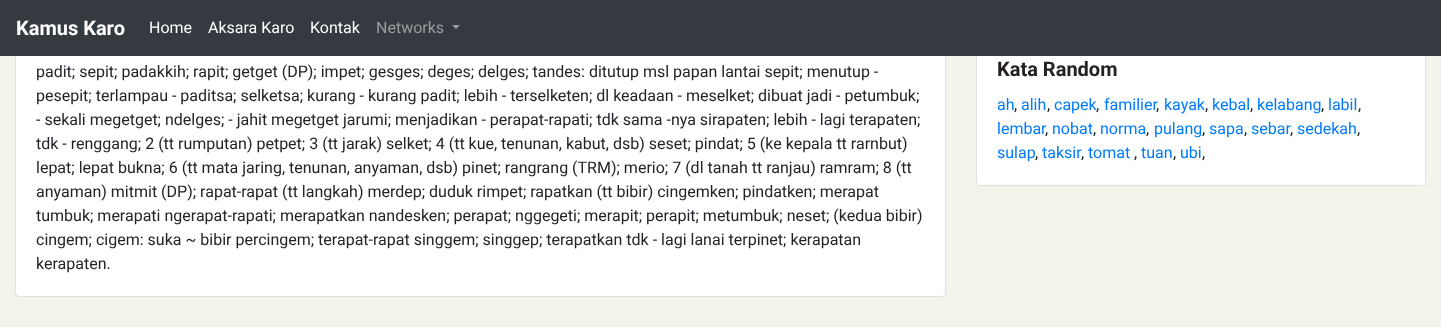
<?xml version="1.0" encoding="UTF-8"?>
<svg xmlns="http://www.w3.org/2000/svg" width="1441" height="327">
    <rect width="100%" height="100%" fill="#F3F3E9"/>
    <rect x="15" y="-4" width="931" height="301" rx="4" fill="#FFFFFF"/>
    <rect x="15.5" y="-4.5" width="930" height="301" rx="3.5" fill="none" stroke="#000000" stroke-opacity="0.12"/>
    <rect x="976" y="-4" width="450" height="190" rx="4" fill="#FFFFFF"/>
    <rect x="976.5" y="-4.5" width="449" height="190" rx="3.5" fill="none" stroke="#000000" stroke-opacity="0.12"/>
    <rect x="0" y="0" width="1441" height="56" fill="#343A40"/>
    <text x="16" y="35" font-family="Roboto" font-size="20" font-weight="700" fill="#FFFFFF">Kamus Karo</text>
    <text x="149" y="33" font-family="Roboto" font-size="16" fill="#FFFFFF">Home</text>
    <text x="208" y="33" font-family="Roboto" font-size="16" fill="#FFFFFF">Aksara Karo</text>
    <text x="310" y="33" font-family="Roboto" font-size="16" fill="#FFFFFF">Kontak</text>
    <text x="376" y="33" font-family="Roboto" font-size="16" fill="#9A9DA0">Networks</text>
    <path d="M 452 25 H 460 L 456 29 Z" fill="#9A9DA0"/>
    <text font-family="Roboto" font-size="16" fill="#212529">
        <tspan x="36" y="77">padit; sepit; padakkih; rapit; getget (DP); impet; gesges; deges; delges; tandes: ditutup msl papan lantai sepit; menutup -</tspan>
        <tspan x="36" y="101">pesepit; terlampau - paditsa; selketsa; kurang - kurang padit; lebih - terselketen; dl keadaan - meselket; dibuat jadi - petumbuk;</tspan>
        <tspan x="36" y="125">- sekali megetget; ndelges; - jahit megetget jarumi; menjadikan - perapat-rapati; tdk sama -nya sirapaten; lebih - lagi terapaten;</tspan>
        <tspan x="36" y="149">tdk - renggang; 2 (tt rumputan) petpet; 3 (tt jarak) selket; 4 (tt kue, tenunan, kabut, dsb) seset; pindat; 5 (ke kepala tt rarnbut)</tspan>
        <tspan x="36" y="173">lepat; lepat bukna; 6 (tt mata jaring, tenunan, anyaman, dsb) pinet; rangrang (TRM); merio; 7 (dl tanah tt ranjau) ramram; 8 (tt</tspan>
        <tspan x="36" y="197">anyaman) mitmit (DP); rapat-rapat (tt langkah) merdep; duduk rimpet; rapatkan (tt bibir) cingemken; pindatken; merapat</tspan>
        <tspan x="36" y="221">tumbuk; merapati ngerapat-rapati; merapatkan nandesken; perapat; nggegeti; merapit; perapit; metumbuk; neset; (kedua bibir)</tspan>
        <tspan x="36" y="245">cingem; cigem: suka ~ bibir percingem; terapat-rapat singgem; singgep; terapatkan tdk - lagi lanai terpinet; kerapatan</tspan>
        <tspan x="36" y="269">kerapaten.</tspan>
    </text>
    <text x="997" y="76" font-family="Roboto" font-size="20" font-weight="700" fill="#252122">Kata Random</text>
    <text x="997" y="110" font-family="Roboto" font-size="16" fill="#007BFF">ah</text>
    <text x="1014" y="110" font-family="Roboto" font-size="16" fill="#212529">,</text>
    <text x="1021" y="110" font-family="Roboto" font-size="16" fill="#007BFF">alih</text>
    <text x="1047" y="110" font-family="Roboto" font-size="16" fill="#212529">,</text>
    <text x="1054" y="110" font-family="Roboto" font-size="16" fill="#007BFF">capek</text>
    <text x="1096" y="110" font-family="Roboto" font-size="16" fill="#212529">,</text>
    <text x="1104" y="110" font-family="Roboto" font-size="16" fill="#007BFF">familier</text>
    <text x="1164" y="110" font-family="Roboto" font-size="16" fill="#007BFF">kayak</text>
    <text x="1212" y="110" font-family="Roboto" font-size="16" fill="#007BFF">kebal</text>
    <text x="1257" y="110" font-family="Roboto" font-size="16" fill="#007BFF">kelabang</text>
    <text x="1328" y="110" font-family="Roboto" font-size="16" fill="#007BFF">labil</text>
    <text x="1156" y="110" font-family="Roboto" font-size="16" fill="#212529">,</text>
    <text x="1205" y="110" font-family="Roboto" font-size="16" fill="#212529">,</text>
    <text x="1250" y="110" font-family="Roboto" font-size="16" fill="#212529">,</text>
    <text x="1321" y="110" font-family="Roboto" font-size="16" fill="#212529">,</text>
    <text x="1358" y="110" font-family="Roboto" font-size="16" fill="#212529">,</text>
    <text x="997" y="134" font-family="Roboto" font-size="16" fill="#007BFF">lembar</text>
    <text x="1045" y="134" font-family="Roboto" font-size="16" fill="#212529">,</text>
    <text x="1052" y="134" font-family="Roboto" font-size="16" fill="#007BFF">nobat</text>
    <text x="1093" y="134" font-family="Roboto" font-size="16" fill="#212529">,</text>
    <text x="1100" y="134" font-family="Roboto" font-size="16" fill="#007BFF">norma</text>
    <text x="1146" y="134" font-family="Roboto" font-size="16" fill="#212529">,</text>
    <text x="1154" y="134" font-family="Roboto" font-size="16" fill="#007BFF">pulang</text>
    <text x="1202" y="134" font-family="Roboto" font-size="16" fill="#212529">,</text>
    <text x="1209" y="134" font-family="Roboto" font-size="16" fill="#007BFF">sapa</text>
    <text x="1244" y="134" font-family="Roboto" font-size="16" fill="#212529">,</text>
    <text x="1251" y="134" font-family="Roboto" font-size="16" fill="#007BFF">sebar</text>
    <text x="1297" y="134" font-family="Roboto" font-size="16" fill="#007BFF">sedekah</text>
    <text x="1290" y="134" font-family="Roboto" font-size="16" fill="#212529">,</text>
    <text x="1357" y="134" font-family="Roboto" font-size="16" fill="#212529">,</text>
    <text x="997" y="158" font-family="Roboto" font-size="16" fill="#007BFF">sulap</text>
    <text x="1035" y="158" font-family="Roboto" font-size="16" fill="#212529">,</text>
    <text x="1042" y="158" font-family="Roboto" font-size="16" fill="#007BFF">taksir</text>
    <text x="1081" y="158" font-family="Roboto" font-size="16" fill="#212529">,</text>
    <text x="1088" y="158" font-family="Roboto" font-size="16" fill="#007BFF">tomat</text>
    <text x="1134" y="158" font-family="Roboto" font-size="16" fill="#212529">,</text>
    <text x="1141" y="158" font-family="Roboto" font-size="16" fill="#007BFF">tuan</text>
    <text x="1173" y="158" font-family="Roboto" font-size="16" fill="#212529">,</text>
    <text x="1180" y="158" font-family="Roboto" font-size="16" fill="#007BFF">ubi</text>
    <text x="1202" y="158" font-family="Roboto" font-size="16" fill="#212529">,</text>
</svg>
